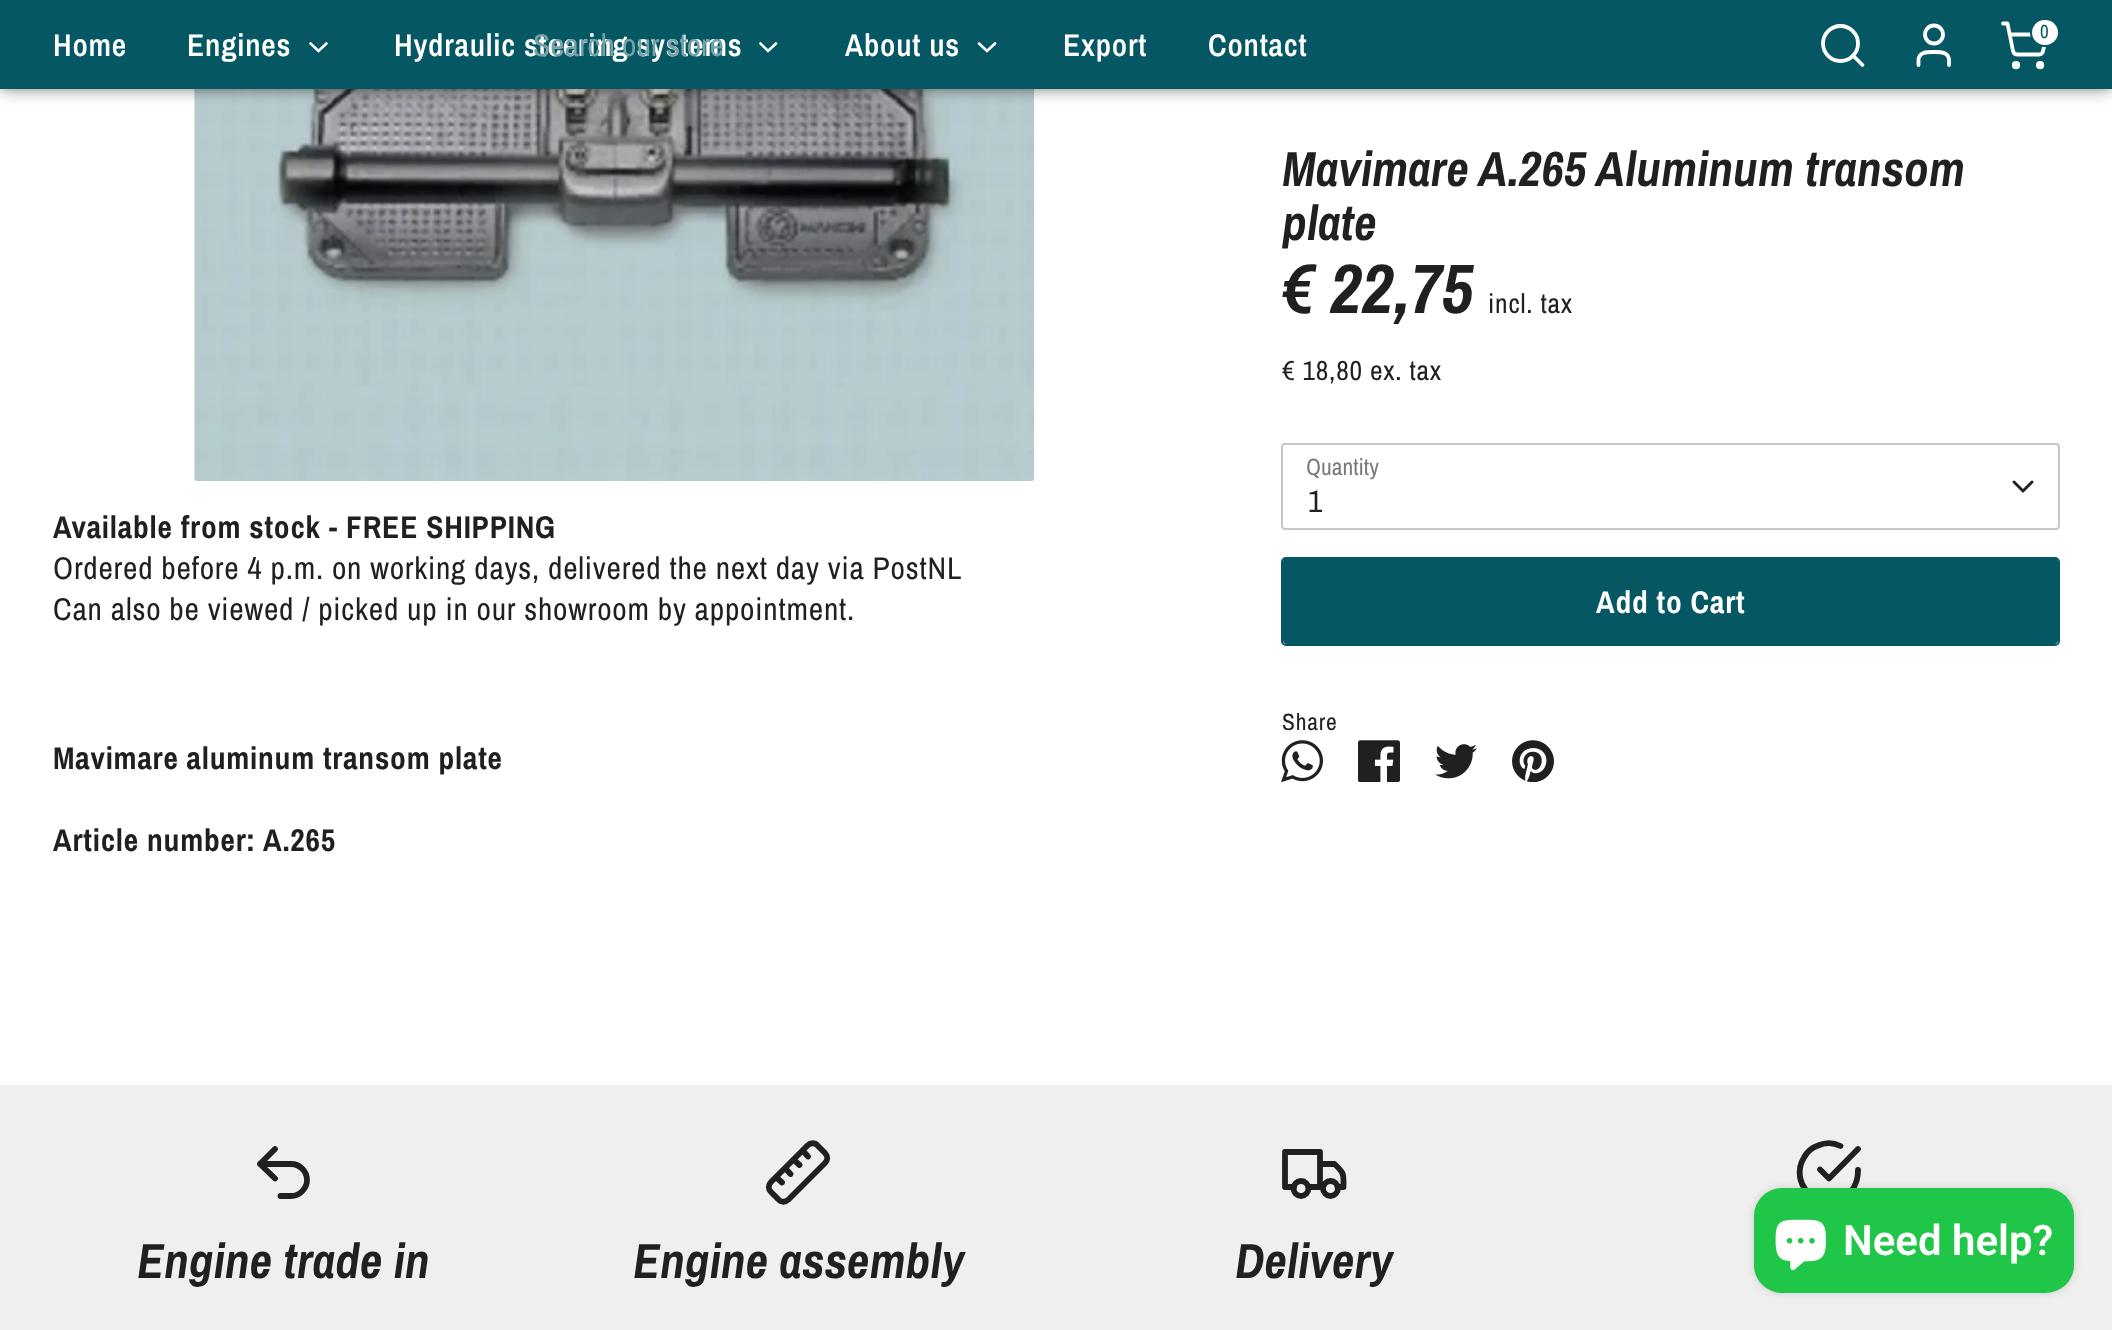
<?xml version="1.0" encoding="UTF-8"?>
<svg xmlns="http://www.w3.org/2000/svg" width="2112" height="1330">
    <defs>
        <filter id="blur1" x="-50%" y="-200%" width="200%" height="500%"><feGaussianBlur stdDeviation="9"/></filter>
        <filter id="blur2" x="-50%" y="-200%" width="200%" height="500%"><feGaussianBlur stdDeviation="4.5"/></filter>
    </defs>
    <rect width="100%" height="100%" fill="#FFFFFF"/>
    <image x="194" y="89" width="841" height="392" href="img_01.png"/>
    <rect x="0" y="-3" width="2112" height="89" fill="#000000" fill-opacity="0.75" filter="url(#blur1)"/>
    <rect x="0" y="0" width="2112" height="89" fill="#055764"/>
    <circle cx="1840.5" cy="43.5" r="17.5" fill="none" stroke="#FFFFFF" stroke-width="3.8"/>
    <path d="M 1862.5 65 L 1853 55.5" fill="none" stroke="#FFFFFF" stroke-width="3.8" stroke-linecap="round" stroke-linejoin="round"/>
    <path d="M 1949 65 V 59 C 1947.5 51.5 1940 52 1934 52 C 1927.5 52 1920 51.5 1918.5 59 V 65" fill="none" stroke="#FFFFFF" stroke-width="3.8" stroke-linecap="round" stroke-linejoin="round"/>
    <circle cx="1934" cy="34.5" r="9" fill="none" stroke="#FFFFFF" stroke-width="3.8"/>
    <circle cx="2016" cy="65.2" r="2.2" fill="none" stroke="#FFFFFF" stroke-width="3.8"/>
    <circle cx="2040.1" cy="65.2" r="2.2" fill="none" stroke="#FFFFFF" stroke-width="3.8"/>
    <path d="M 2003 23.5 H 2007.5 L 2013 51 C 2013.5 53 2015.5 54.5 2017.5 54.5 H 2039 C 2041 54.5 2043 53 2043 51 L 2047 34.5 H 2009.5" fill="none" stroke="#FFFFFF" stroke-width="3.8" stroke-linecap="round" stroke-linejoin="round"/>
    <rect x="2031" y="19" width="28" height="27" rx="13.5" fill="#FFFFFF" stroke="#055764" stroke-width="2"/>
    <text x="2040" y="38" font-family="Archivo Narrow" font-size="19" fill="#055764">0</text>
    <text x="394" y="56" font-family="Archivo Narrow" font-size="31.5" font-weight="600" letter-spacing="0.8" fill="#FFFFFF">Hydraulic steering systems</text>
    <text x="533" y="56" font-family="Archivo Narrow" font-size="31.5" fill="#75A2A9">Search our store</text>
    <text x="53" y="56" font-family="Archivo Narrow" font-size="31.5" font-weight="600" letter-spacing="0.8" fill="#FFFFFF">Home</text>
    <text x="187" y="56" font-family="Archivo Narrow" font-size="31.5" font-weight="600" letter-spacing="0.8" fill="#FFFFFF">Engines</text>
    <path d="M 310.5 43.5 L 318.5 51 L 326.5 43.5" fill="none" stroke="#FFFFFF" stroke-width="2.6" stroke-linecap="round"/>
    <path d="M 760.5 43.5 L 768 51 L 776 43.5" fill="none" stroke="#FFFFFF" stroke-width="2.6" stroke-linecap="round"/>
    <text x="845" y="56" font-family="Archivo Narrow" font-size="31.5" font-weight="600" letter-spacing="0.8" fill="#FFFFFF">About us</text>
    <path d="M 979 43.5 L 987 51 L 995 43.5" fill="none" stroke="#FFFFFF" stroke-width="2.6" stroke-linecap="round"/>
    <text x="1063" y="56" font-family="Archivo Narrow" font-size="31.5" font-weight="600" letter-spacing="0.8" fill="#FFFFFF">Export</text>
    <text x="1208" y="56" font-family="Archivo Narrow" font-size="31.5" font-weight="600" letter-spacing="0.8" fill="#FFFFFF">Contact</text>
    <text x="53" y="538" font-family="Archivo Narrow" font-size="31.5" font-weight="700" letter-spacing="0.8" fill="#202020">Available from stock - FREE SHIPPING</text>
    <text font-family="Archivo Narrow" font-size="31.5" letter-spacing="0.8" fill="#202020">
        <tspan x="53" y="579">Ordered before 4 p.m. on working days, delivered the next day via PostNL</tspan>
        <tspan x="53" y="620">Can also be viewed / picked up in our showroom by appointment.</tspan>
    </text>
    <text x="53" y="769" font-family="Archivo Narrow" font-size="31.5" font-weight="700" letter-spacing="0.8" fill="#202020">Mavimare aluminum transom plate</text>
    <text x="53" y="851" font-family="Archivo Narrow" font-size="31.5" font-weight="700" letter-spacing="0.8" fill="#202020">Article number: A.265</text>
    <text font-family="Archivo Narrow" font-size="49.4" font-weight="700" font-style="italic" fill="#202020">
        <tspan x="1282" y="186">Mavimare A.265 Aluminum transom</tspan>
        <tspan x="1282" y="240">plate</tspan>
    </text>
    <text x="1282" y="313" font-family="Archivo Narrow" font-size="70" font-weight="700" font-style="italic" fill="#202020">€ 22,75</text>
    <text x="1488" y="313" font-family="Archivo Narrow" font-size="27.5" letter-spacing="0.8" fill="#202020">incl. tax</text>
    <text x="1282" y="380" font-family="Archivo Narrow" font-size="27.5" letter-spacing="0.8" fill="#202020">€ 18,80 ex. tax</text>
    <text x="1306" y="475" font-family="Archivo Narrow" font-size="23.5" fill="#797979">Quantity</text>
    <rect x="1282" y="444" width="777" height="85" rx="3" fill="none" stroke="#C7C7C7" stroke-width="2"/>
    <path d="M 2014 482 L 2023 491 L 2032 482" fill="none" stroke="#202020" stroke-width="2.9" stroke-linecap="round" stroke-linejoin="round"/>
    <text x="1308" y="512" font-family="Archivo Narrow" font-size="31.5" letter-spacing="0.8" fill="#202020">1</text>
    <rect x="1282" y="558" width="777" height="87" rx="4" fill="none" stroke="#055764" stroke-width="2"/>
    <rect x="1283" y="558" width="775" height="86" rx="4" fill="#055764"/>
    <text x="1596" y="613" font-family="Archivo Narrow" font-size="31.5" font-weight="700" letter-spacing="0.8" fill="#FFFFFF">Add to Cart</text>
    <text x="1282" y="730" font-family="Archivo Narrow" font-size="23.5" letter-spacing="0.8" fill="#202020">Share</text>
    <image x="1281" y="740" width="42" height="42" href="img_02.png"/>
    <image x="1358" y="740" width="42" height="42" href="img_03.png"/>
    <image x="1435" y="744" width="42" height="35" href="img_04.png"/>
    <image x="1512" y="740" width="42" height="42" href="img_05.png"/>
    <rect x="0" y="1085" width="2112" height="245" fill="#EFEFEF"/>
    <path d="M 1858 1170 C 1858 1182 1853 1193 1841.5 1198.5 C 1815.5 1211 1789 1182 1804 1157.5 C 1807 1152 1812 1147.5 1818 1145.5 C 1825 1142.5 1833.5 1142.5 1840.5 1146" fill="none" stroke="#202020" stroke-width="5.8" stroke-linecap="round" stroke-linejoin="round"/>
    <path d="M 1858 1149 L 1829 1178.5 L 1820 1169.5" fill="none" stroke="#202020" stroke-width="5.8" stroke-linecap="round" stroke-linejoin="round"/>
    <path d="M 275 1178.5 L 260 1164 L 275 1149 M 260 1164 H 291 C 299.5 1164 307 1171 307 1180 C 307 1188.5 299.5 1196 291 1196 H 280.5" fill="none" stroke="#202020" stroke-width="5.8" stroke-linecap="round" stroke-linejoin="round"/>
    <text x="137" y="1278" font-family="Archivo Narrow" font-size="49.4" font-weight="700" font-style="italic" fill="#202020">Engine trade in</text>
    <path d="M 825 1163 L 788.5 1199.5 C 785.5 1202.5 781 1202.5 778.5 1199.5 L 771 1192 C 768 1189 768 1185 771 1182 L 807.5 1145.5 C 810.5 1142.5 815 1142.5 817.5 1145.5 L 825 1153 C 828 1156 828 1160 825 1163 Z M 785 1168 L 790.5 1174 M 793.5 1159.5 L 799.5 1165 M 802.5 1150.5 L 808 1156.5 M 776 1177 L 782 1182.5" fill="none" stroke="#202020" stroke-width="5.8" stroke-linecap="round" stroke-linejoin="round"/>
    <text x="633" y="1278" font-family="Archivo Narrow" font-size="49.4" font-weight="700" font-style="italic" fill="#202020">Engine assembly</text>
    <path d="M 1308.5 1187 H 1320 V 1152 H 1285 V 1187 H 1294 M 1337.5 1187 H 1343.5 C 1343.5 1173.5 1344.5 1173.5 1334.5 1164 H 1320 M 1320 1187 H 1323" fill="none" stroke="#202020" stroke-width="5.8" stroke-linecap="round" stroke-linejoin="round"/>
    <circle cx="1301" cy="1188.5" r="7.5" fill="none" stroke="#202020" stroke-width="5.8"/>
    <circle cx="1330.5" cy="1188.5" r="7.5" fill="none" stroke="#202020" stroke-width="5.8"/>
    <text x="1235" y="1278" font-family="Archivo Narrow" font-size="49.4" font-weight="700" font-style="italic" fill="#202020">Delivery</text>
    <rect x="1754" y="1188" width="320" height="105" rx="28" fill="#000000" fill-opacity="0.15" filter="url(#blur2)"/>
    <rect x="1754" y="1188" width="320" height="105" rx="28" fill="#1FC647"/>
    <image x="1775" y="1219" width="51" height="52" href="img_06.png"/>
    <text x="1843" y="1255" font-family="Roboto" font-size="42" font-weight="600" fill="#FFFFFF">Need help?</text>
</svg>
